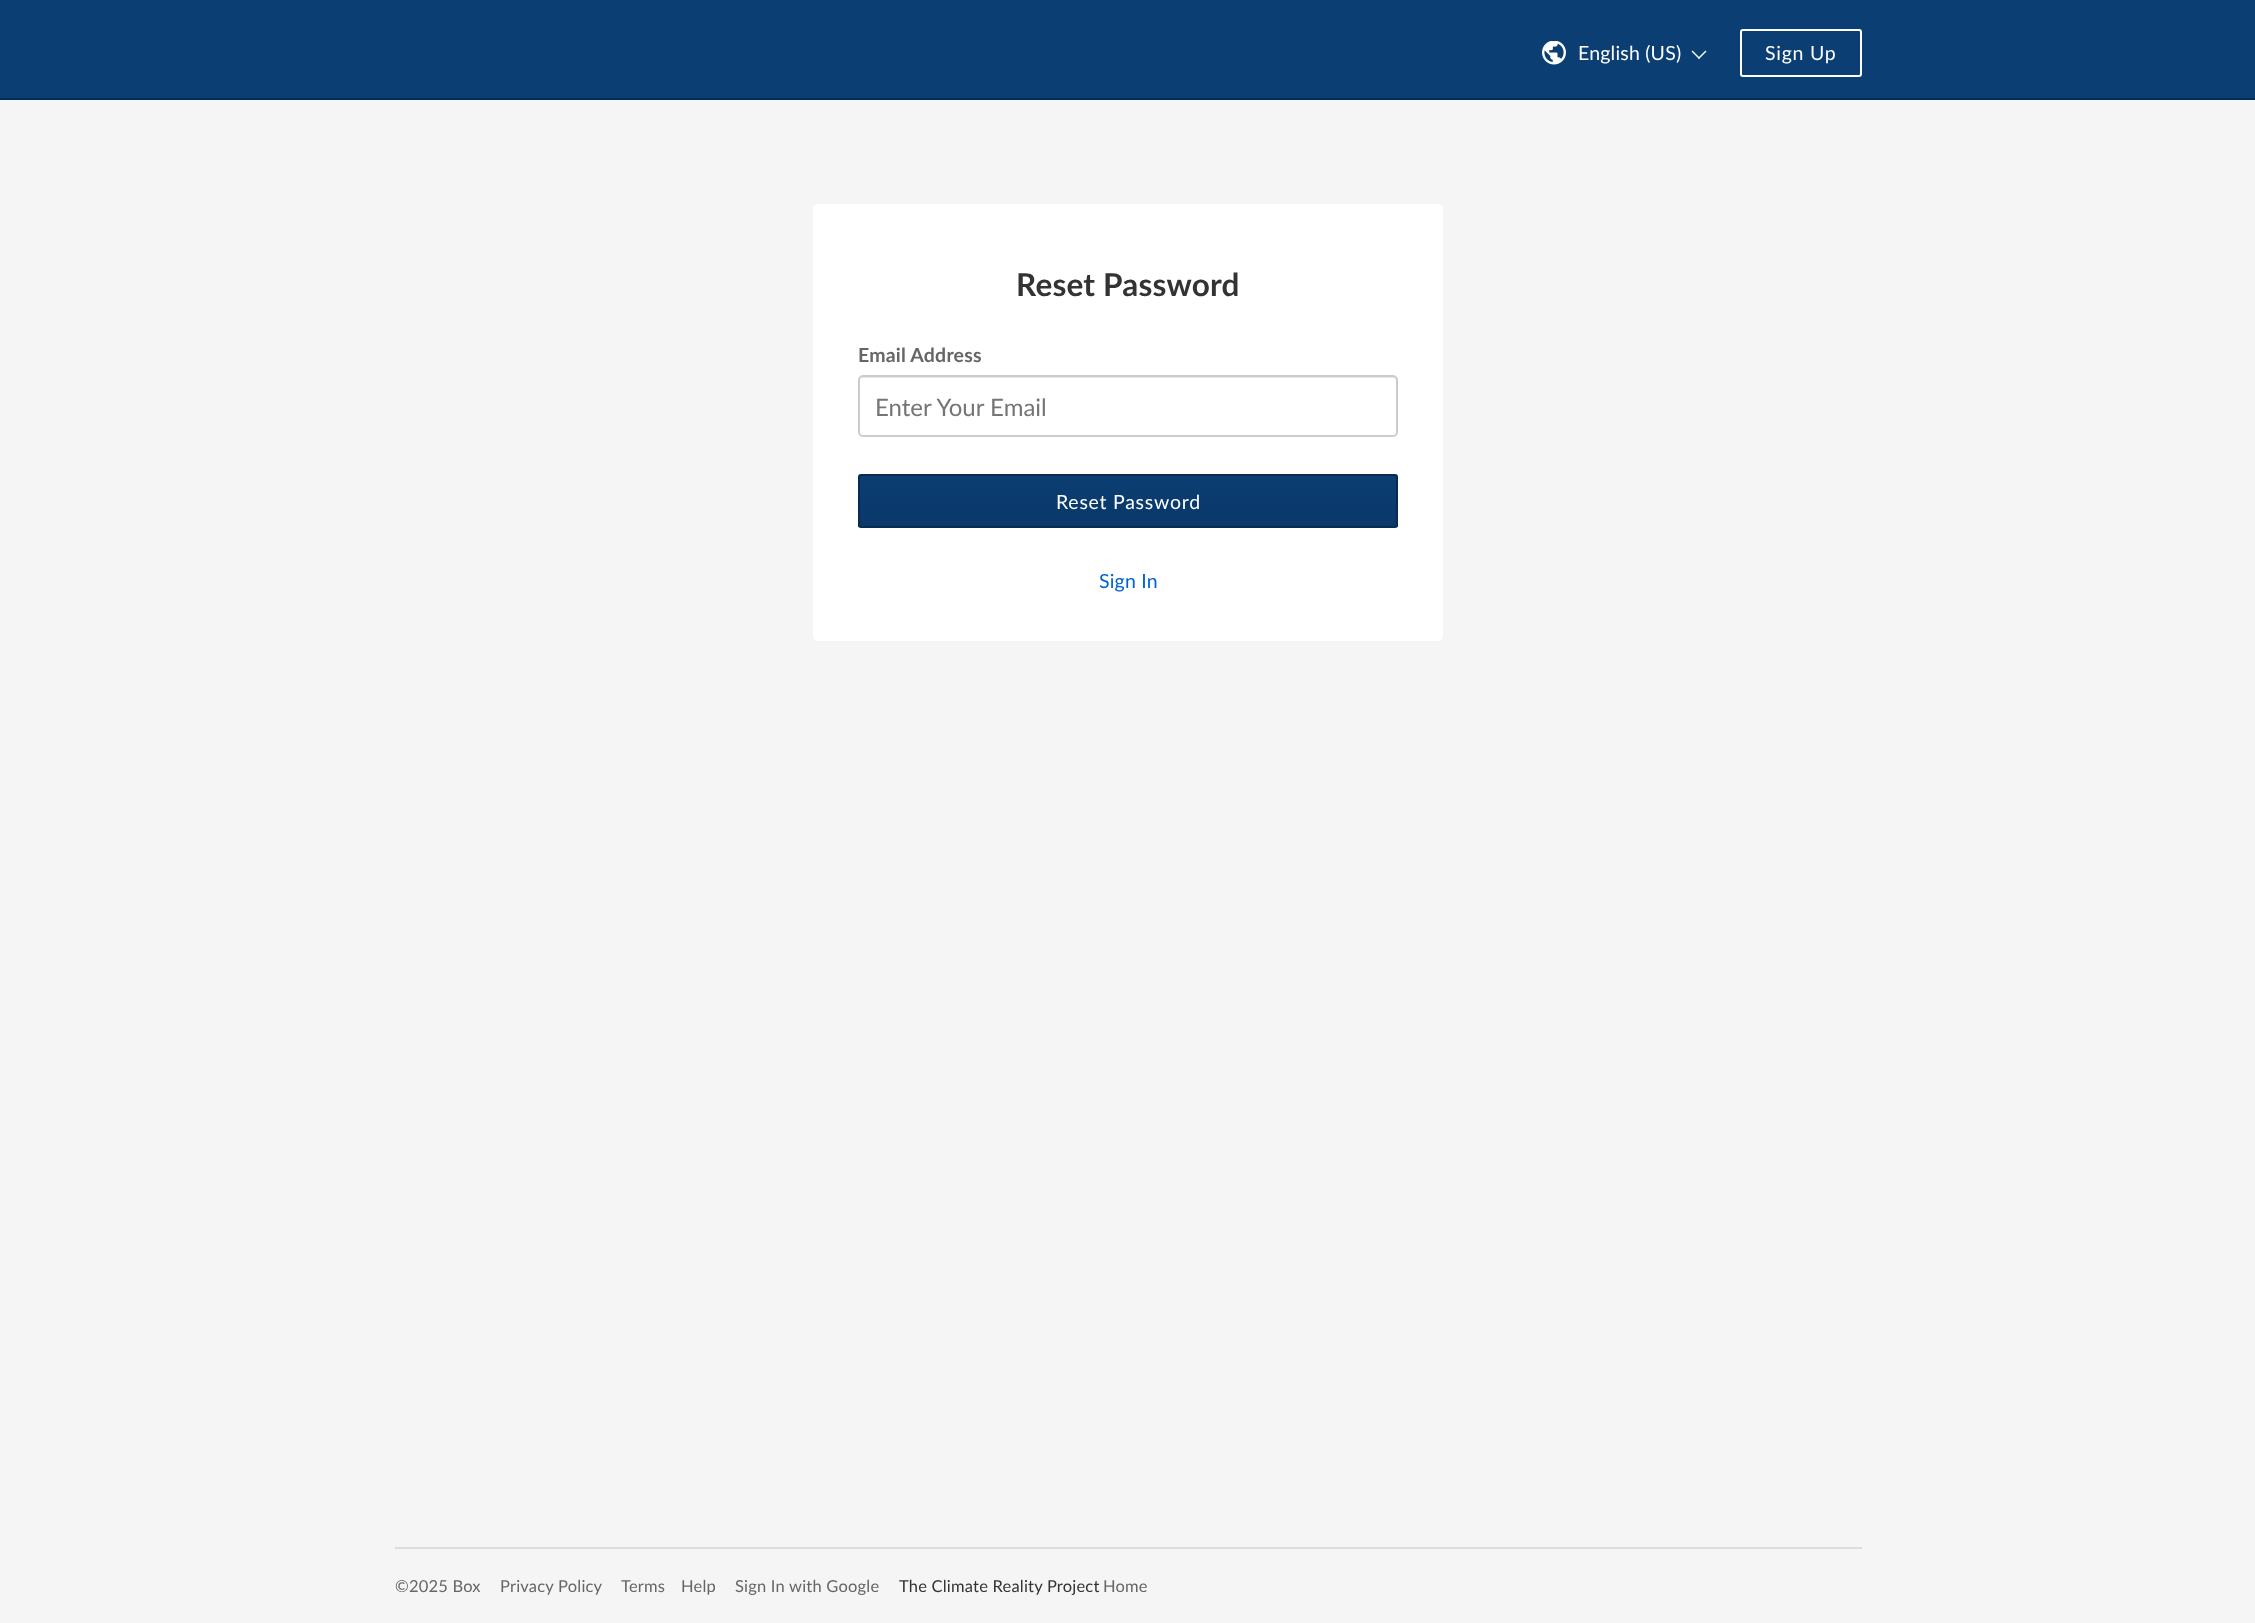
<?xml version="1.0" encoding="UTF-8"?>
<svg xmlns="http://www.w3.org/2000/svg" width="2255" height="1623">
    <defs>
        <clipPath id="clip1"><rect x="858" y="474" width="540" height="54" rx="3"/></clipPath>
        <linearGradient id="g1" gradientUnits="userSpaceOnUse" x1="1128" y1="476" x2="1128" y2="527"><stop offset="0" stop-color="#0B3E73"/><stop offset="1" stop-color="#0A3869"/></linearGradient>
    </defs>
    <rect width="100%" height="100%" fill="#F5F5F5"/>
    <rect x="0" y="0" width="2255" height="98" fill="#0B3E73"/>
    <rect x="0" y="98" width="2255" height="2" fill="#072C52"/>
    <image x="1542" y="41" width="24" height="24" href="img_01.png"/>
    <text x="1578" y="60" font-family="Lato" font-size="19.5" letter-spacing="0.2" fill="#FFFFFF">English (US)</text>
    <path d="M 1705.5 50.5 L 1706.5 51.5 L 1699 59 L 1698 58 Z" fill="#FFFFFF"/>
    <path d="M 1692.5 50.5 L 1700 58 L 1699 59 L 1691.5 51.5 Z" fill="#FFFFFF"/>
    <rect x="1741" y="30" width="120" height="46" rx="2" fill="none" stroke="#FFFFFF" stroke-width="2"/>
    <text x="1765" y="60" font-family="Lato" font-size="19.5" letter-spacing="0.75" fill="#FFFFFF">Sign Up</text>
    <rect x="813" y="204" width="630" height="437" rx="5" fill="#FFFFFF"/>
    <text x="1016" y="296" font-family="Lato" font-size="31.5" font-weight="700" letter-spacing="0.2" fill="#333333">Reset Password</text>
    <text x="858" y="362" font-family="Lato" font-size="19.5" font-weight="700" letter-spacing="0.2" fill="#666666">Email Address</text>
    <path d="M 862 378 H 1394 C 1395 378 1396 379 1396 381 V 434 C 1397 434 1397 433 1397 432 V 380 C 1397 378 1396 377 1394 377 H 863 C 861 377 860 378 860 380 V 381 C 860 379 861 378 862 378 Z" fill="#E6E6E6"/>
    <rect x="859" y="376" width="538" height="60" rx="4" fill="none" stroke="#CCCCCC" stroke-width="2"/>
    <text x="875" y="416" font-family="Lato" font-size="24" fill="#757575">Enter Your Email</text>
    <g clip-path="url(#clip1)">
        <rect x="858" y="476" width="540" height="51" fill="url(#g1)"/>
    </g>
    <rect x="859" y="475" width="538" height="52" rx="2" fill="none" stroke="#072C52" stroke-width="2"/>
    <text x="1056" y="509" font-family="Lato" font-size="19.5" letter-spacing="0.75" fill="#FFFFFF">Reset Password</text>
    <text x="1099" y="588" font-family="Lato" font-size="19.5" letter-spacing="0.2" fill="#0061D5">Sign In</text>
    <rect x="395" y="1547" width="1467" height="2" fill="#DDDDDD"/>
    <text x="395" y="1592" font-family="Lato" font-size="16.5" letter-spacing="0.2" fill="#666666">©2025 Box</text>
    <text x="500" y="1592" font-family="Lato" font-size="16.5" letter-spacing="0.2" fill="#666666">Privacy Policy</text>
    <text x="621" y="1592" font-family="Lato" font-size="16.5" letter-spacing="0.2" fill="#666666">Terms</text>
    <text x="681" y="1592" font-family="Lato" font-size="16.5" letter-spacing="0.2" fill="#666666">Help</text>
    <text x="735" y="1592" font-family="Lato" font-size="16.5" letter-spacing="0.2" fill="#666666">Sign In with Google</text>
    <text x="899" y="1592" font-family="Lato" font-size="16.5" letter-spacing="0.2" fill="#333333">The Climate Reality Project</text>
    <text x="1103" y="1592" font-family="Lato" font-size="16.5" letter-spacing="0.2" fill="#666666">Home</text>
</svg>
